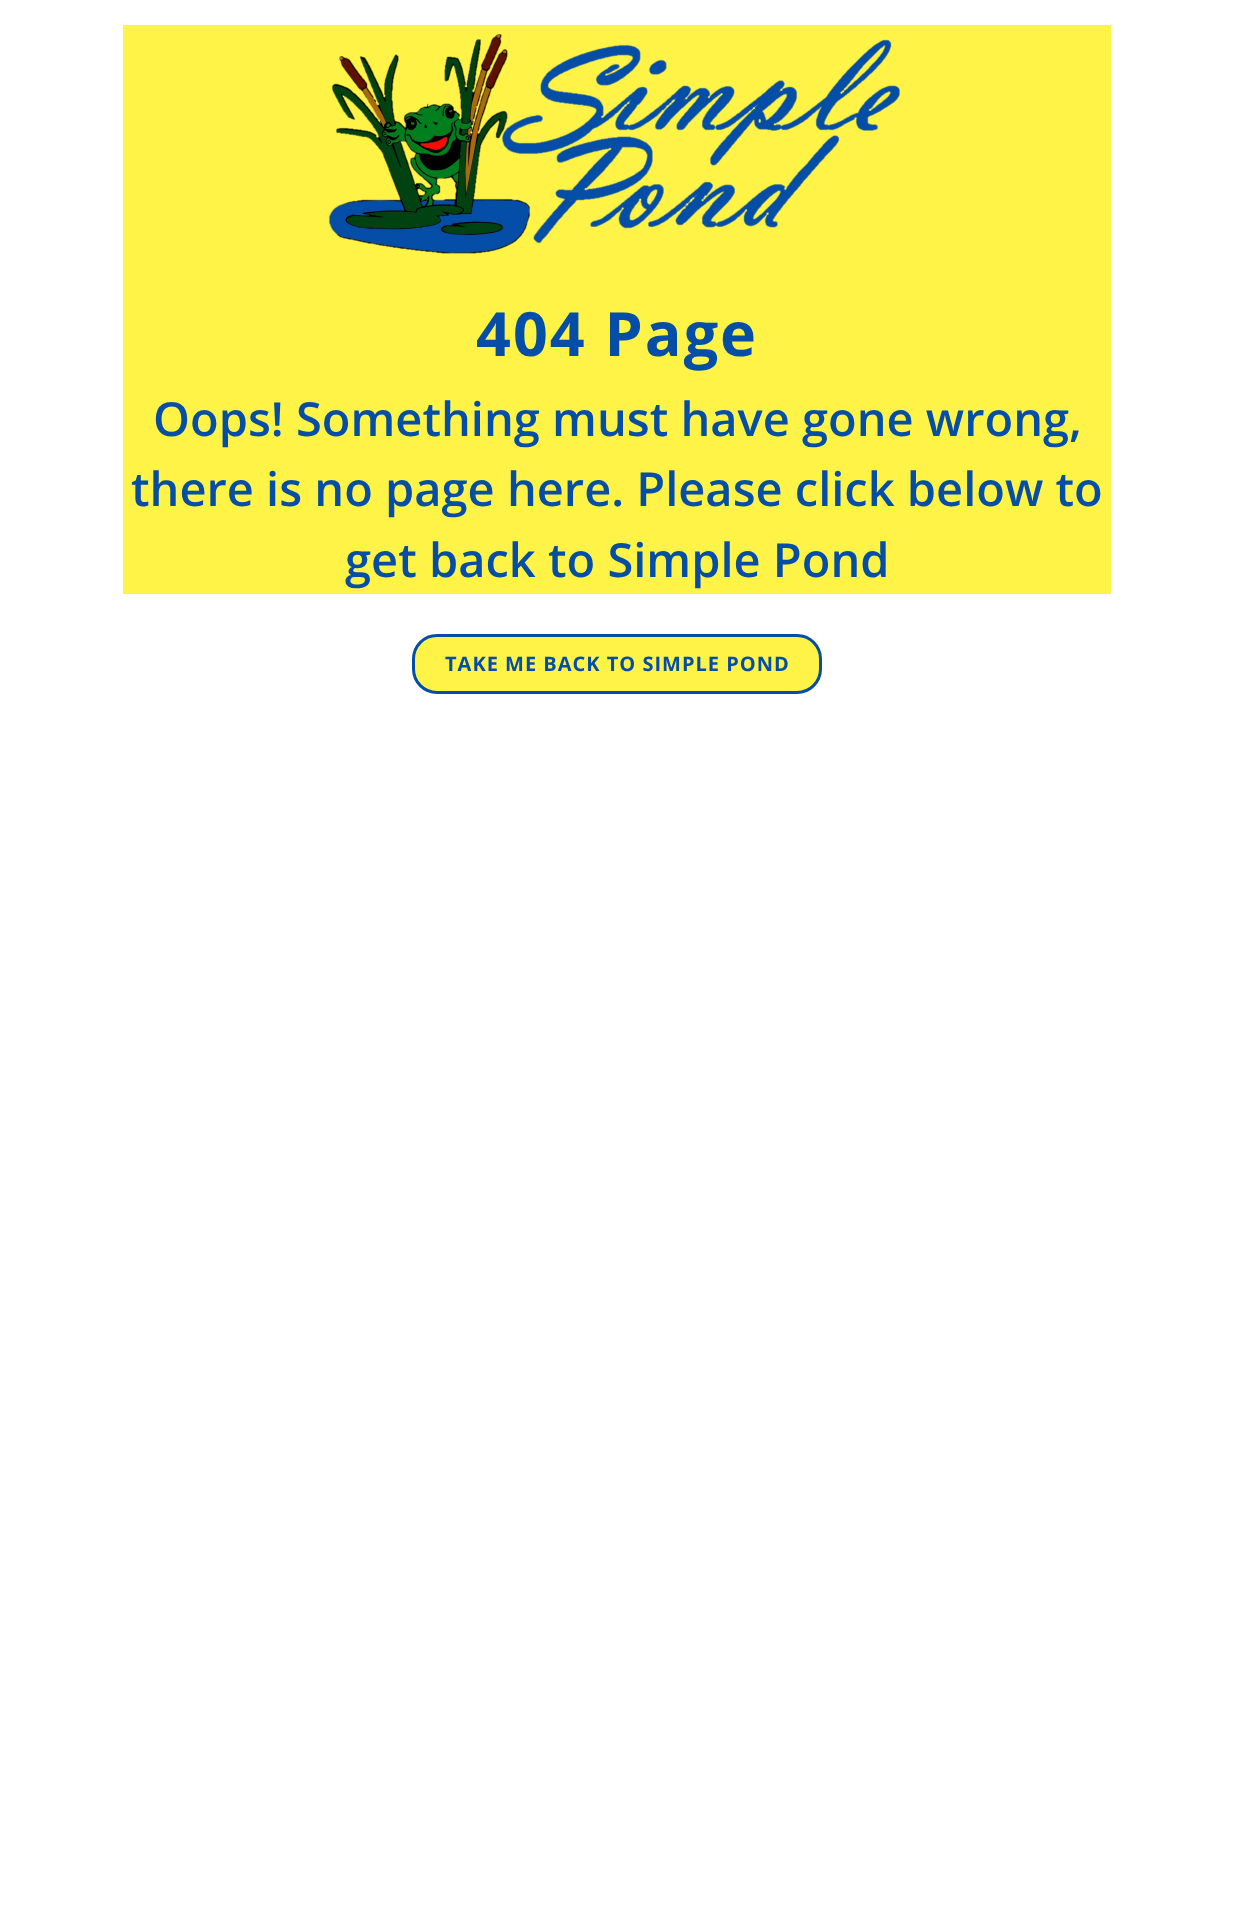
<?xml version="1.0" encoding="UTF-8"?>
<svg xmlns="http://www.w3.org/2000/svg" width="1234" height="1905">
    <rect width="100%" height="100%" fill="#FFFFFF"/>
    <rect x="123" y="25" width="988" height="569" fill="#FFF347"/>
    <image x="329" y="33" width="571" height="221" href="img_01.png"/>
    <text x="476" y="356" font-family="Open Sans" font-size="61" font-weight="700" letter-spacing="2" fill="#044EA7">404 Page</text>
    <text x="153" y="436" font-family="Open Sans" font-size="47" font-weight="600" fill="#044EA7">Oops! Something must have gone wrong,</text>
    <text x="131" y="506" font-family="Open Sans" font-size="47" font-weight="600" fill="#044EA7">there is no page here. Please click below to</text>
    <text x="345" y="577" font-family="Open Sans" font-size="47" font-weight="600" fill="#044EA7">get back to Simple Pond</text>
    <rect x="413.5" y="635.5" width="407" height="57" rx="23.5" fill="#FFF347" stroke="#044EA7" stroke-width="3"/>
    <text x="445" y="671" font-family="Open Sans" font-size="20" font-weight="700" letter-spacing="1" fill="#044EA7">TAKE ME BACK TO SIMPLE POND</text>
</svg>
